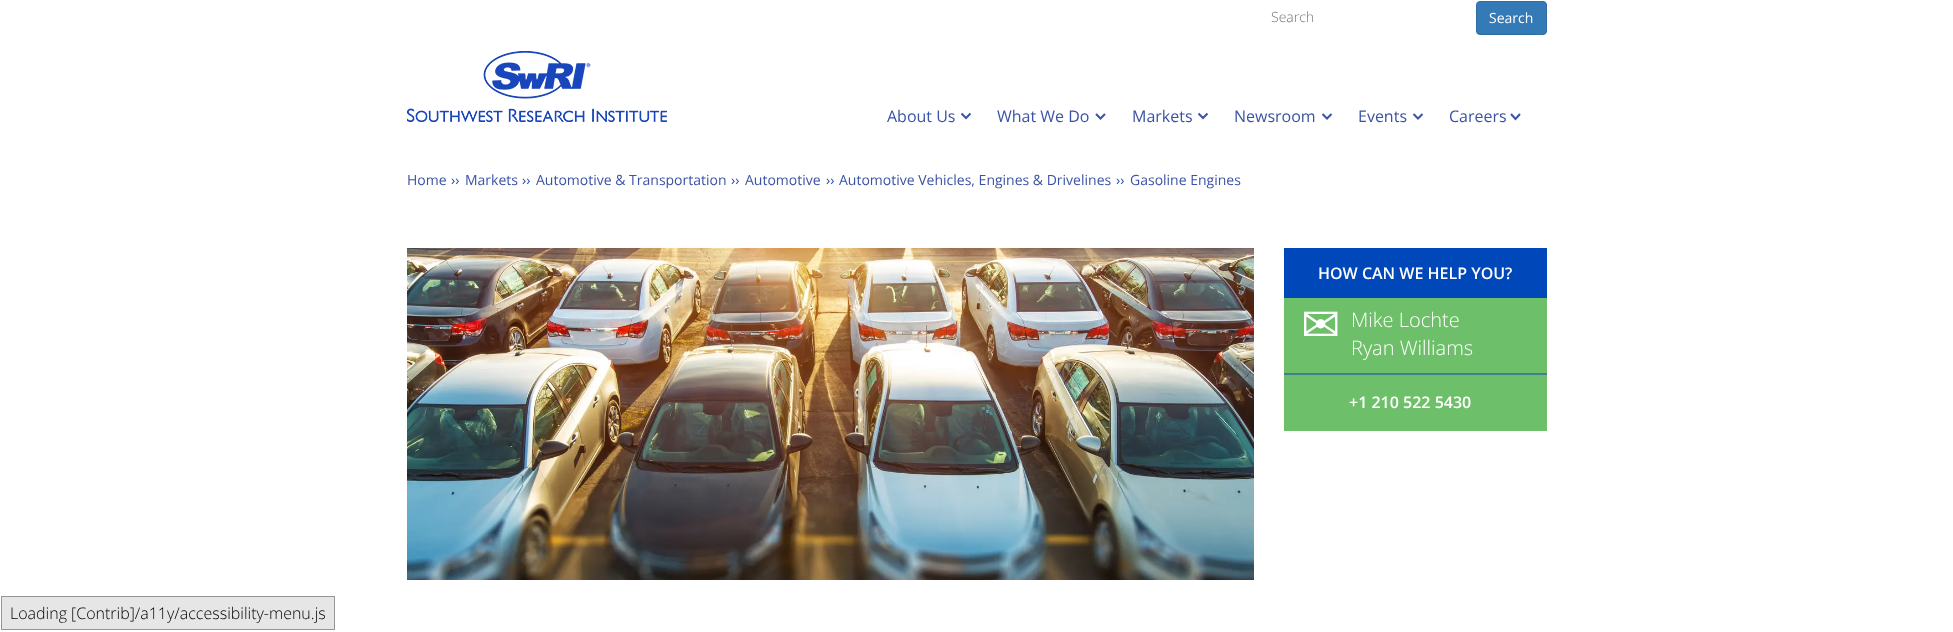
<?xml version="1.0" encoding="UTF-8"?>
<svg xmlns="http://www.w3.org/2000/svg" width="1953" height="632">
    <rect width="100%" height="100%" fill="#FFFFFF"/>
    <text x="1271" y="22" font-family="Open Sans" font-size="14" font-weight="300" fill="#757575">Search</text>
    <rect x="1476.5" y="1.5" width="70" height="33" rx="3.5" fill="#337AB7" stroke="#2E6DA4"/>
    <text x="1489" y="23" font-family="Open Sans" font-size="14" fill="#FFFFFF">Search</text>
    <image x="407" y="51" width="260" height="71" href="img_01.png"/>
    <text x="887" y="122" font-family="Open Sans" font-size="16" fill="#3B53A4">About Us</text>
    <path d="M 961.5 113.5 L 966 118 L 970.5 113.5" fill="none" stroke="#3B53A4" stroke-width="2"/>
    <text x="997" y="122" font-family="Open Sans" font-size="16" fill="#3B53A4">What We Do</text>
    <path d="M 1096 114 L 1100.5 118.5 L 1105 114" fill="none" stroke="#3B53A4" stroke-width="2"/>
    <text x="1132" y="122" font-family="Open Sans" font-size="16" fill="#3B53A4">Markets</text>
    <path d="M 1198.5 113.5 L 1203 118 L 1207.5 113.5" fill="none" stroke="#3B53A4" stroke-width="2"/>
    <text x="1234" y="122" font-family="Open Sans" font-size="16" fill="#3B53A4">Newsroom</text>
    <path d="M 1322.5 114 L 1327 118.5 L 1331.5 114" fill="none" stroke="#3B53A4" stroke-width="2"/>
    <text x="1358" y="122" font-family="Open Sans" font-size="16" fill="#3B53A4">Events</text>
    <path d="M 1413.5 114 L 1418 118.5 L 1422.5 114" fill="none" stroke="#3B53A4" stroke-width="2"/>
    <text x="1449" y="122" font-family="Open Sans" font-size="16" fill="#3B53A4">Careers</text>
    <path d="M 1511 114 L 1515.5 119 L 1520 114" fill="none" stroke="#3B53A4" stroke-width="2"/>
    <text x="407" y="185" font-family="Open Sans" font-size="14" fill="#3B53A4">Home</text>
    <text x="451" y="185" font-family="Open Sans" font-size="14" fill="#2A51A3">››</text>
    <text x="465" y="185" font-family="Open Sans" font-size="14" fill="#3B53A4">Markets</text>
    <text x="522" y="185" font-family="Open Sans" font-size="14" fill="#2A51A3">››</text>
    <text x="536" y="185" font-family="Open Sans" font-size="14" fill="#3B53A4">Automotive &amp; Transportation</text>
    <text x="731" y="185" font-family="Open Sans" font-size="14" fill="#2A51A3">››</text>
    <text x="745" y="185" font-family="Open Sans" font-size="14" fill="#3B53A4">Automotive</text>
    <text x="826" y="185" font-family="Open Sans" font-size="14" fill="#2A51A3">››</text>
    <text x="839" y="185" font-family="Open Sans" font-size="14" fill="#3B53A4">Automotive Vehicles, Engines &amp; Drivelines</text>
    <text x="1116" y="185" font-family="Open Sans" font-size="14" fill="#2A51A3">››</text>
    <text x="1130" y="185" font-family="Open Sans" font-size="14" fill="#3B53A4">Gasoline Engines</text>
    <image x="407" y="248" width="847" height="332" href="img_02.png"/>
    <rect x="1284" y="248" width="263" height="50" fill="#0047BA"/>
    <text x="1318" y="279" font-family="Open Sans" font-size="16" font-weight="600" fill="#FFFFFF">HOW CAN WE HELP YOU?</text>
    <rect x="1284" y="298" width="263" height="75" fill="#6DC069"/>
    <text x="1301" y="341" font-family="DejaVu Sans" font-size="47" fill="#FFFFFF">✉</text>
    <text font-family="Open Sans" font-size="20" font-weight="300" fill="#FFFFFF">
        <tspan x="1351" y="327">Mike Lochte</tspan>
        <tspan x="1351" y="355">Ryan Williams</tspan>
    </text>
    <rect x="1284" y="375" width="263" height="56" fill="#6DC069"/>
    <rect x="1284" y="373" width="263" height="2" fill="#437E90"/>
    <text x="1349" y="408" font-family="Open Sans" font-size="16" font-weight="600" fill="#FFFFFF">+1 210 522 5430</text>
    <rect x="1.5" y="596.5" width="333" height="33" fill="#E6E6E6" stroke="#959595"/>
    <text x="10" y="619" font-family="Open Sans" font-size="16" font-weight="300" fill="#000000">Loading [Contrib]/a11y/accessibility-menu.js</text>
</svg>
